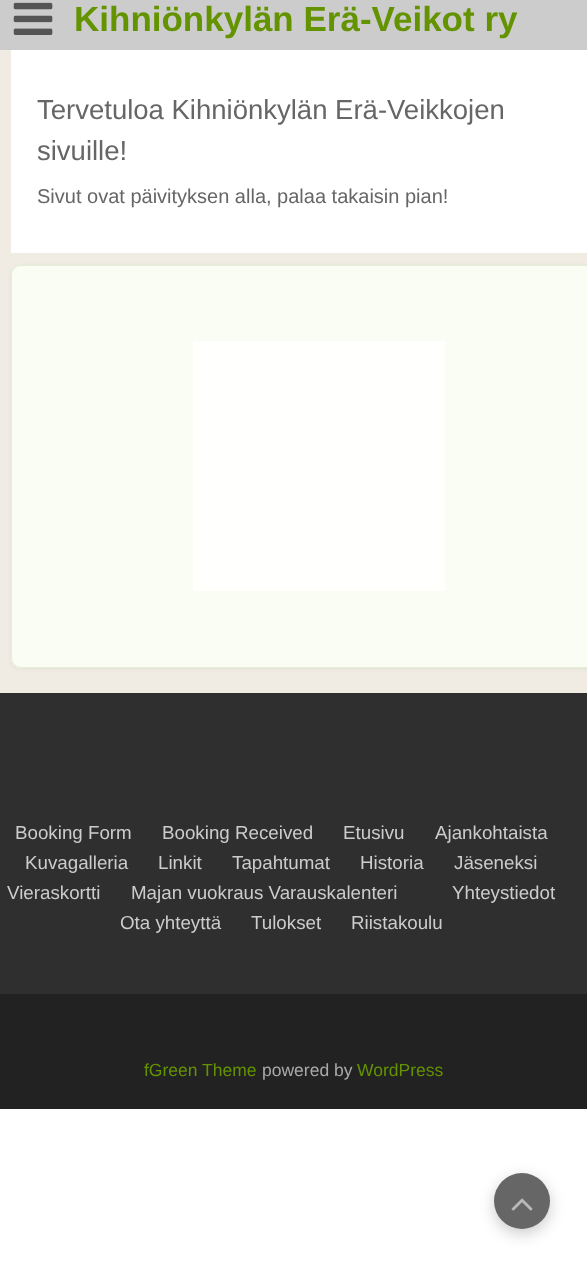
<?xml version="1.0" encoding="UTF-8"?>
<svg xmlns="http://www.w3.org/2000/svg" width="587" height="1266">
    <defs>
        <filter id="blur1" x="-50%" y="-200%" width="200%" height="500%"><feGaussianBlur stdDeviation="2"/></filter>
        <filter id="blur2" x="-50%" y="-200%" width="200%" height="500%"><feGaussianBlur stdDeviation="7.5"/></filter>
    </defs>
    <rect width="100%" height="100%" fill="#FFFFFF"/>
    <rect x="0" y="50" width="587" height="643" fill="#F0ECE3"/>
    <rect x="0" y="0" width="587" height="50" fill="#CCCCCC"/>
    <image x="13" y="2" width="40" height="33" href="img_01.png"/>
    <text x="74" y="31" font-family="Liberation Sans" font-size="35" font-weight="700" fill="#649300">Kihniönkylän Erä-Veikot ry</text>
    <rect x="11" y="50" width="576" height="203" fill="#FFFFFF"/>
    <text font-family="Liberation Sans" font-size="27.5" fill="#666666">
        <tspan x="37" y="119">Tervetuloa Kihniönkylän Erä-Veikkojen</tspan>
        <tspan x="37" y="160">sivuille!</tspan>
    </text>
    <text x="37" y="203" font-family="Liberation Sans" font-size="20" fill="#666666">Sivut ovat päivityksen alla, palaa takaisin pian!</text>
    <rect x="11" y="266" width="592" height="403" rx="10" fill="#000000" fill-opacity="0.05" filter="url(#blur1)"/>
    <path d="M 21 265 H 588 V 668 H 21 C 15.5 668 11 663.5 11 658 V 275 C 11 269.5 15.5 265 21 265 Z" fill="#F9FDF4"/>
    <rect x="11.5" y="265.5" width="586" height="402" rx="9.5" fill="none" stroke="#E2EFD4"/>
    <rect x="193" y="341" width="252" height="250" fill="#FFFFFE"/>
    <rect x="0" y="693" width="587" height="301" fill="#2F2F2F"/>
    <text x="15" y="839" font-family="Liberation Sans" font-size="18.75" fill="#CCCCCC">Booking Form</text>
    <text x="162" y="839" font-family="Liberation Sans" font-size="18.75" fill="#CCCCCC">Booking Received</text>
    <text x="343" y="839" font-family="Liberation Sans" font-size="18.75" fill="#CCCCCC">Etusivu</text>
    <text x="435" y="839" font-family="Liberation Sans" font-size="18.75" fill="#CCCCCC">Ajankohtaista</text>
    <text x="25" y="869" font-family="Liberation Sans" font-size="18.75" fill="#CCCCCC">Kuvagalleria</text>
    <text x="158" y="869" font-family="Liberation Sans" font-size="18.75" fill="#CCCCCC">Linkit</text>
    <text x="232" y="869" font-family="Liberation Sans" font-size="18.75" fill="#CCCCCC">Tapahtumat</text>
    <text x="360" y="869" font-family="Liberation Sans" font-size="18.75" fill="#CCCCCC">Historia</text>
    <text x="454" y="869" font-family="Liberation Sans" font-size="18.75" fill="#CCCCCC">Jäseneksi</text>
    <text x="7" y="899" font-family="Liberation Sans" font-size="18.75" fill="#CCCCCC">Vieraskortti</text>
    <text x="131" y="899" font-family="Liberation Sans" font-size="18.75" fill="#CCCCCC">Majan vuokraus Varauskalenteri</text>
    <text x="452" y="899" font-family="Liberation Sans" font-size="18.75" fill="#CCCCCC">Yhteystiedot</text>
    <text x="120" y="929" font-family="Liberation Sans" font-size="18.75" fill="#CCCCCC">Ota yhteyttä</text>
    <text x="251" y="929" font-family="Liberation Sans" font-size="18.75" fill="#CCCCCC">Tulokset</text>
    <text x="351" y="929" font-family="Liberation Sans" font-size="18.75" fill="#CCCCCC">Riistakoulu</text>
    <rect x="0" y="994" width="587" height="115" fill="#222222"/>
    <text x="144" y="1076" font-family="Liberation Sans" font-size="17.5" fill="#649300">fGreen Theme</text>
    <text x="262" y="1076" font-family="Liberation Sans" font-size="17.5" fill="#AAAAAA">powered by</text>
    <text x="357" y="1076" font-family="Liberation Sans" font-size="17.5" fill="#649300">WordPress</text>
    <rect x="494" y="1178" width="56" height="56" rx="28" fill="#1A1A1A" fill-opacity="0.2" filter="url(#blur2)"/>
    <circle cx="522" cy="1201" r="28" fill="#666666"/>
    <image x="511" y="1198" width="22" height="13" href="img_02.png"/>
</svg>
